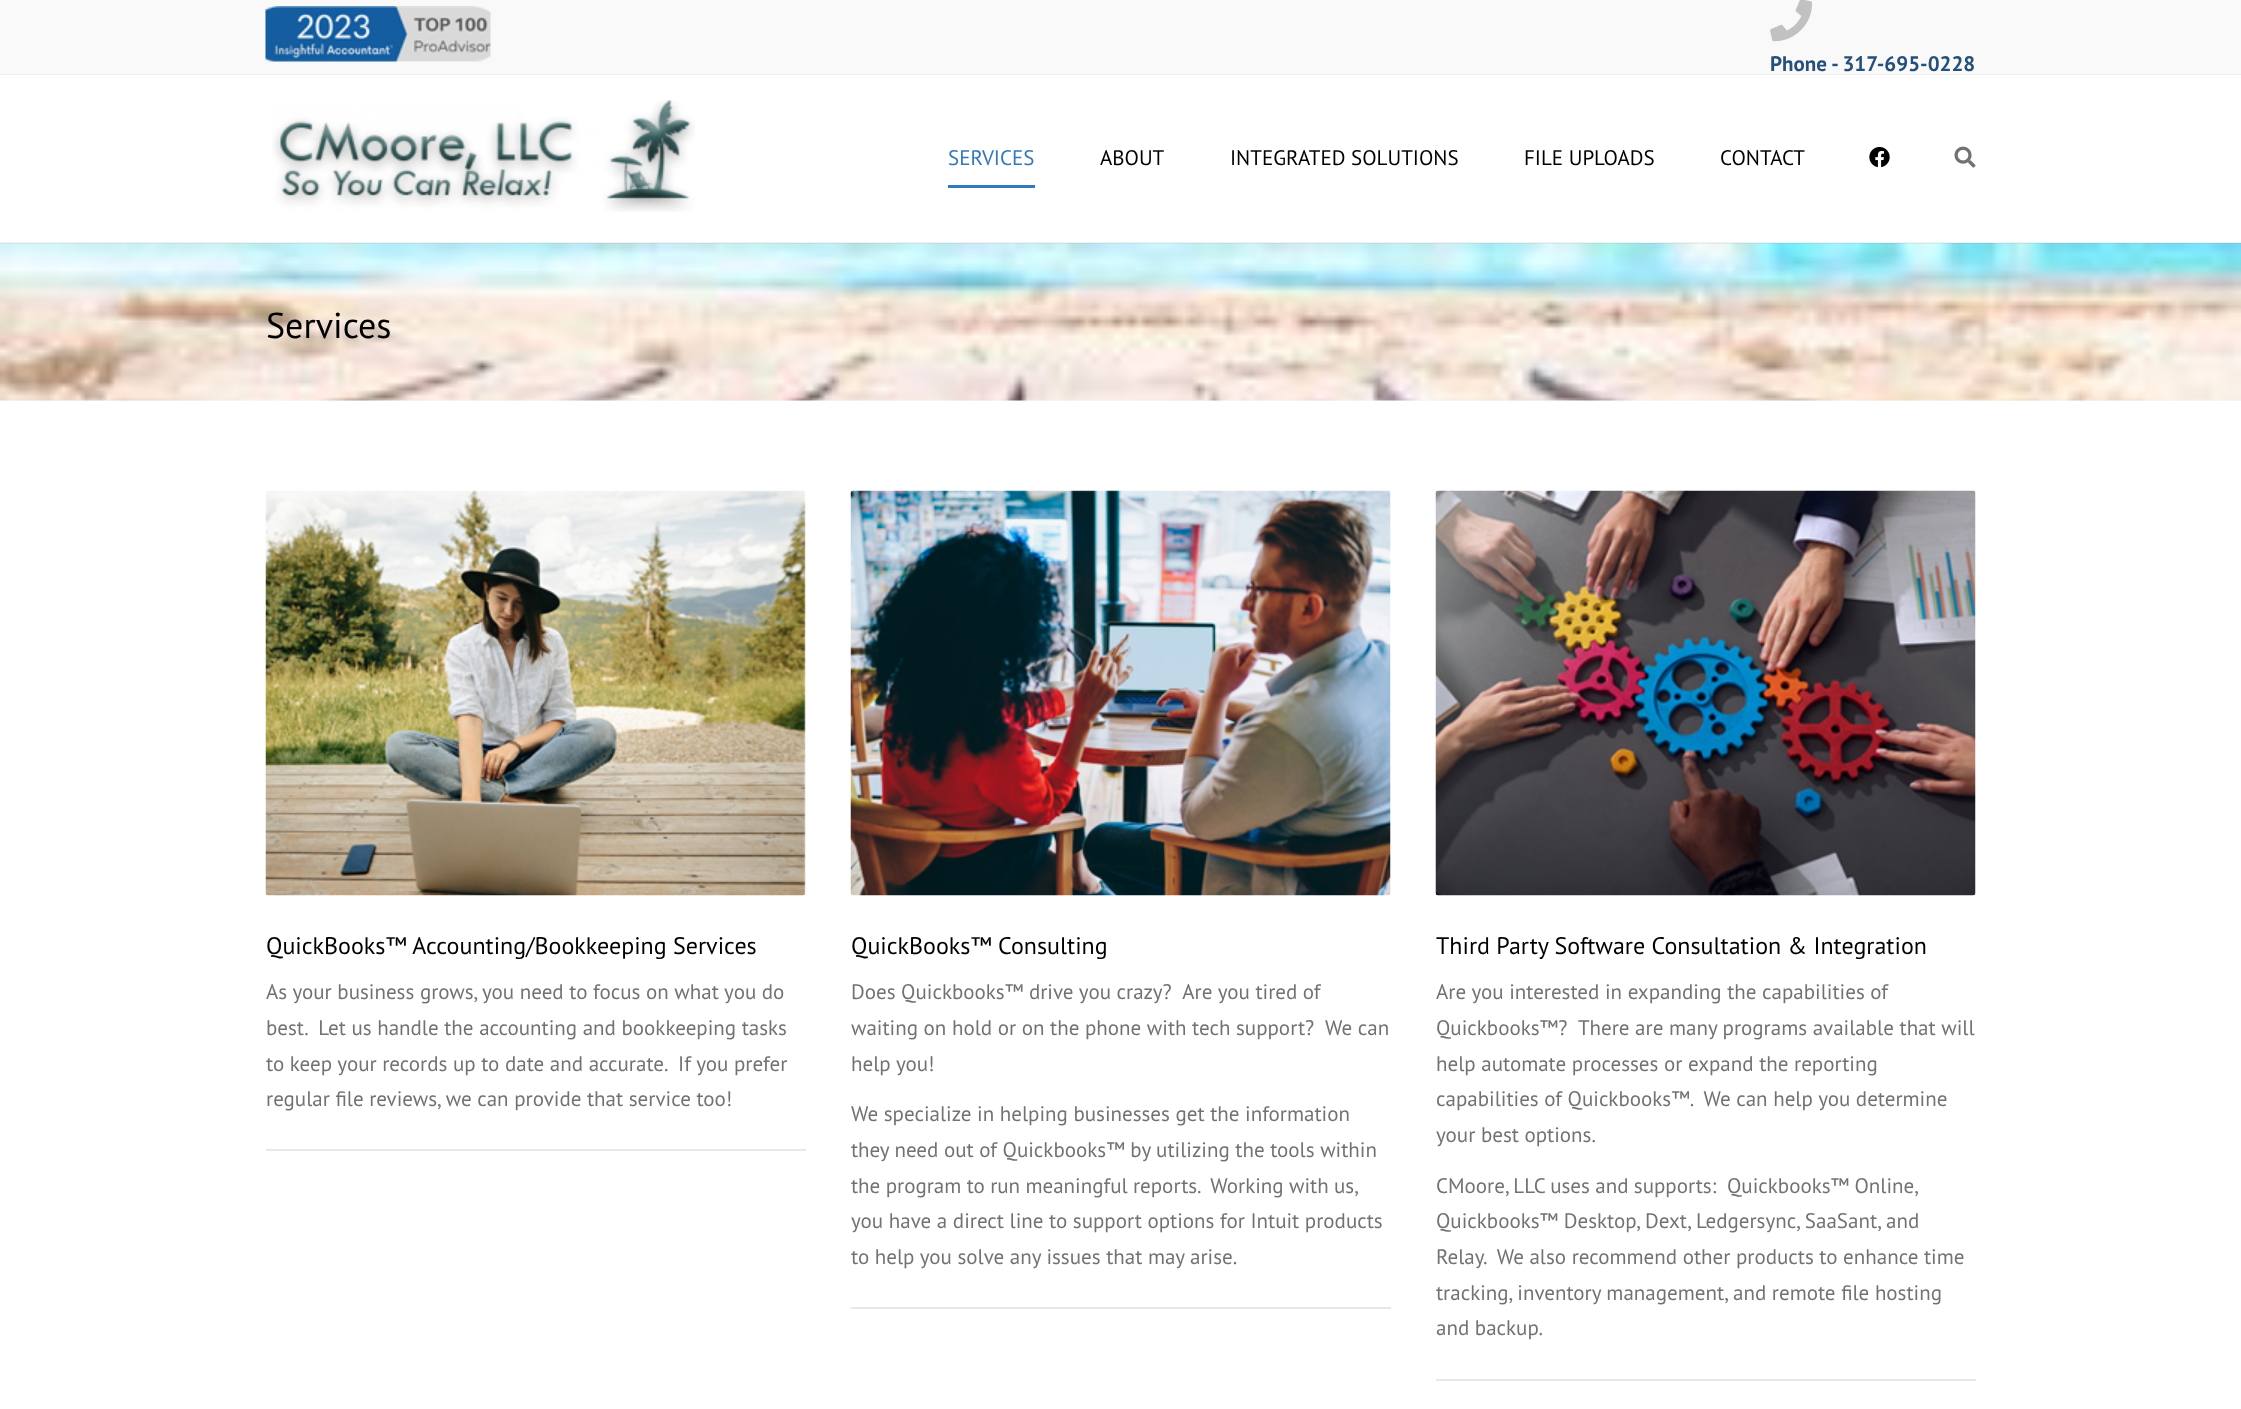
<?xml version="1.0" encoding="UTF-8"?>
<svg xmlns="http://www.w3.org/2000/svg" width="2241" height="1409">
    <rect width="100%" height="100%" fill="#FFFFFF"/>
    <rect x="0" y="0" width="2241" height="74" fill="#F9F9F9"/>
    <rect x="0" y="74" width="2241" height="1" fill="#EDEDED"/>
    <image x="265" y="6" width="226" height="56" href="img_01.png"/>
    <image x="1770" y="0" width="42" height="42" href="img_02.png"/>
    <text x="1770" y="71" font-family="PT Sans" font-size="21" font-weight="700" fill="#26507A">Phone - 317-695-0228</text>
    <rect x="0" y="400" width="2241" height="1" fill="#F8F8F8"/>
    <image x="0" y="243" width="2241" height="158" href="img_06.png"/>
    <rect x="0" y="242" width="2241" height="2" fill="#000000" fill-opacity="0.05"/>
    <image x="272" y="100" width="423" height="112" href="img_03.png"/>
    <text x="948" y="165" font-family="PT Sans" font-size="21" fill="#3178BF">SERVICES</text>
    <rect x="948" y="185" width="87" height="3" fill="#3178BF"/>
    <text x="1100" y="165" font-family="PT Sans" font-size="21" fill="#000000">ABOUT</text>
    <text x="1230" y="165" font-family="PT Sans" font-size="21" fill="#000000">INTEGRATED SOLUTIONS</text>
    <text x="1524" y="165" font-family="PT Sans" font-size="21" fill="#000000">FILE UPLOADS</text>
    <text x="1720" y="165" font-family="PT Sans" font-size="21" fill="#000000">CONTACT</text>
    <image x="1869" y="147" width="21" height="21" href="img_04.png"/>
    <image x="1954" y="146" width="22" height="22" href="img_05.png"/>
    <text x="266" y="338" font-family="PT Sans" font-size="36" fill="#000000">Services</text>
    <image x="265" y="490" width="541" height="406" href="img_07.png"/>
    <text x="266" y="954" font-family="PT Sans" font-size="24" fill="#000000">QuickBooks™ Accounting/Bookkeeping Services</text>
    <text font-family="PT Sans" font-size="21" fill="#727272" xml:space="preserve"><tspan x="266" y="999">As your business grows, you need to focus on what you do</tspan><tspan x="266" y="1035">best.  Let us handle the accounting and bookkeeping tasks</tspan><tspan x="266" y="1071">to keep your records up to date and accurate.  If you prefer</tspan><tspan x="266" y="1106">regular file reviews, we can provide that service too!</tspan></text>
    <rect x="266" y="1149" width="540" height="2" fill="#E8E8E8"/>
    <image x="850" y="490" width="541" height="406" href="img_08.png"/>
    <text x="851" y="954" font-family="PT Sans" font-size="24" fill="#000000">QuickBooks™ Consulting</text>
    <text font-family="PT Sans" font-size="21" fill="#727272" xml:space="preserve"><tspan x="851" y="999">Does Quickbooks™ drive you crazy?  Are you tired of</tspan><tspan x="851" y="1035">waiting on hold or on the phone with tech support?  We can</tspan><tspan x="851" y="1071">help you!</tspan></text>
    <text font-family="PT Sans" font-size="21" fill="#727272" xml:space="preserve"><tspan x="851" y="1121">We specialize in helping businesses get the information</tspan><tspan x="851" y="1157">they need out of Quickbooks™ by utilizing the tools within</tspan><tspan x="851" y="1193" word-spacing="-0.25">the program to run meaningful reports.  Working with us,</tspan><tspan x="851" y="1228">you have a direct line to support options for Intuit products</tspan><tspan x="851" y="1264">to help you solve any issues that may arise.</tspan></text>
    <rect x="851" y="1307" width="540" height="2" fill="#E8E8E8"/>
    <image x="1435" y="490" width="541" height="406" href="img_09.png"/>
    <text x="1436" y="954" font-family="PT Sans" font-size="24" fill="#000000">Third Party Software Consultation &amp; Integration</text>
    <text font-family="PT Sans" font-size="21" fill="#727272" xml:space="preserve"><tspan x="1436" y="999">Are you interested in expanding the capabilities of</tspan><tspan x="1436" y="1035">Quickbooks™?  There are many programs available that will</tspan><tspan x="1436" y="1071">help automate processes or expand the reporting</tspan><tspan x="1436" y="1106">capabilities of Quickbooks™.  We can help you determine</tspan><tspan x="1436" y="1142">your best options.</tspan></text>
    <text font-family="PT Sans" font-size="21" fill="#727272" xml:space="preserve"><tspan x="1436" y="1193" word-spacing="-0.25">CMoore, LLC uses and supports:  Quickbooks™ Online,</tspan><tspan x="1436" y="1228">Quickbooks™ Desktop, Dext, Ledgersync, SaaSant, and</tspan><tspan x="1436" y="1264">Relay.  We also recommend other products to enhance time</tspan><tspan x="1436" y="1300">tracking, inventory management, and remote file hosting</tspan><tspan x="1436" y="1335">and backup.</tspan></text>
    <rect x="1436" y="1379" width="540" height="2" fill="#E8E8E8"/>
</svg>
